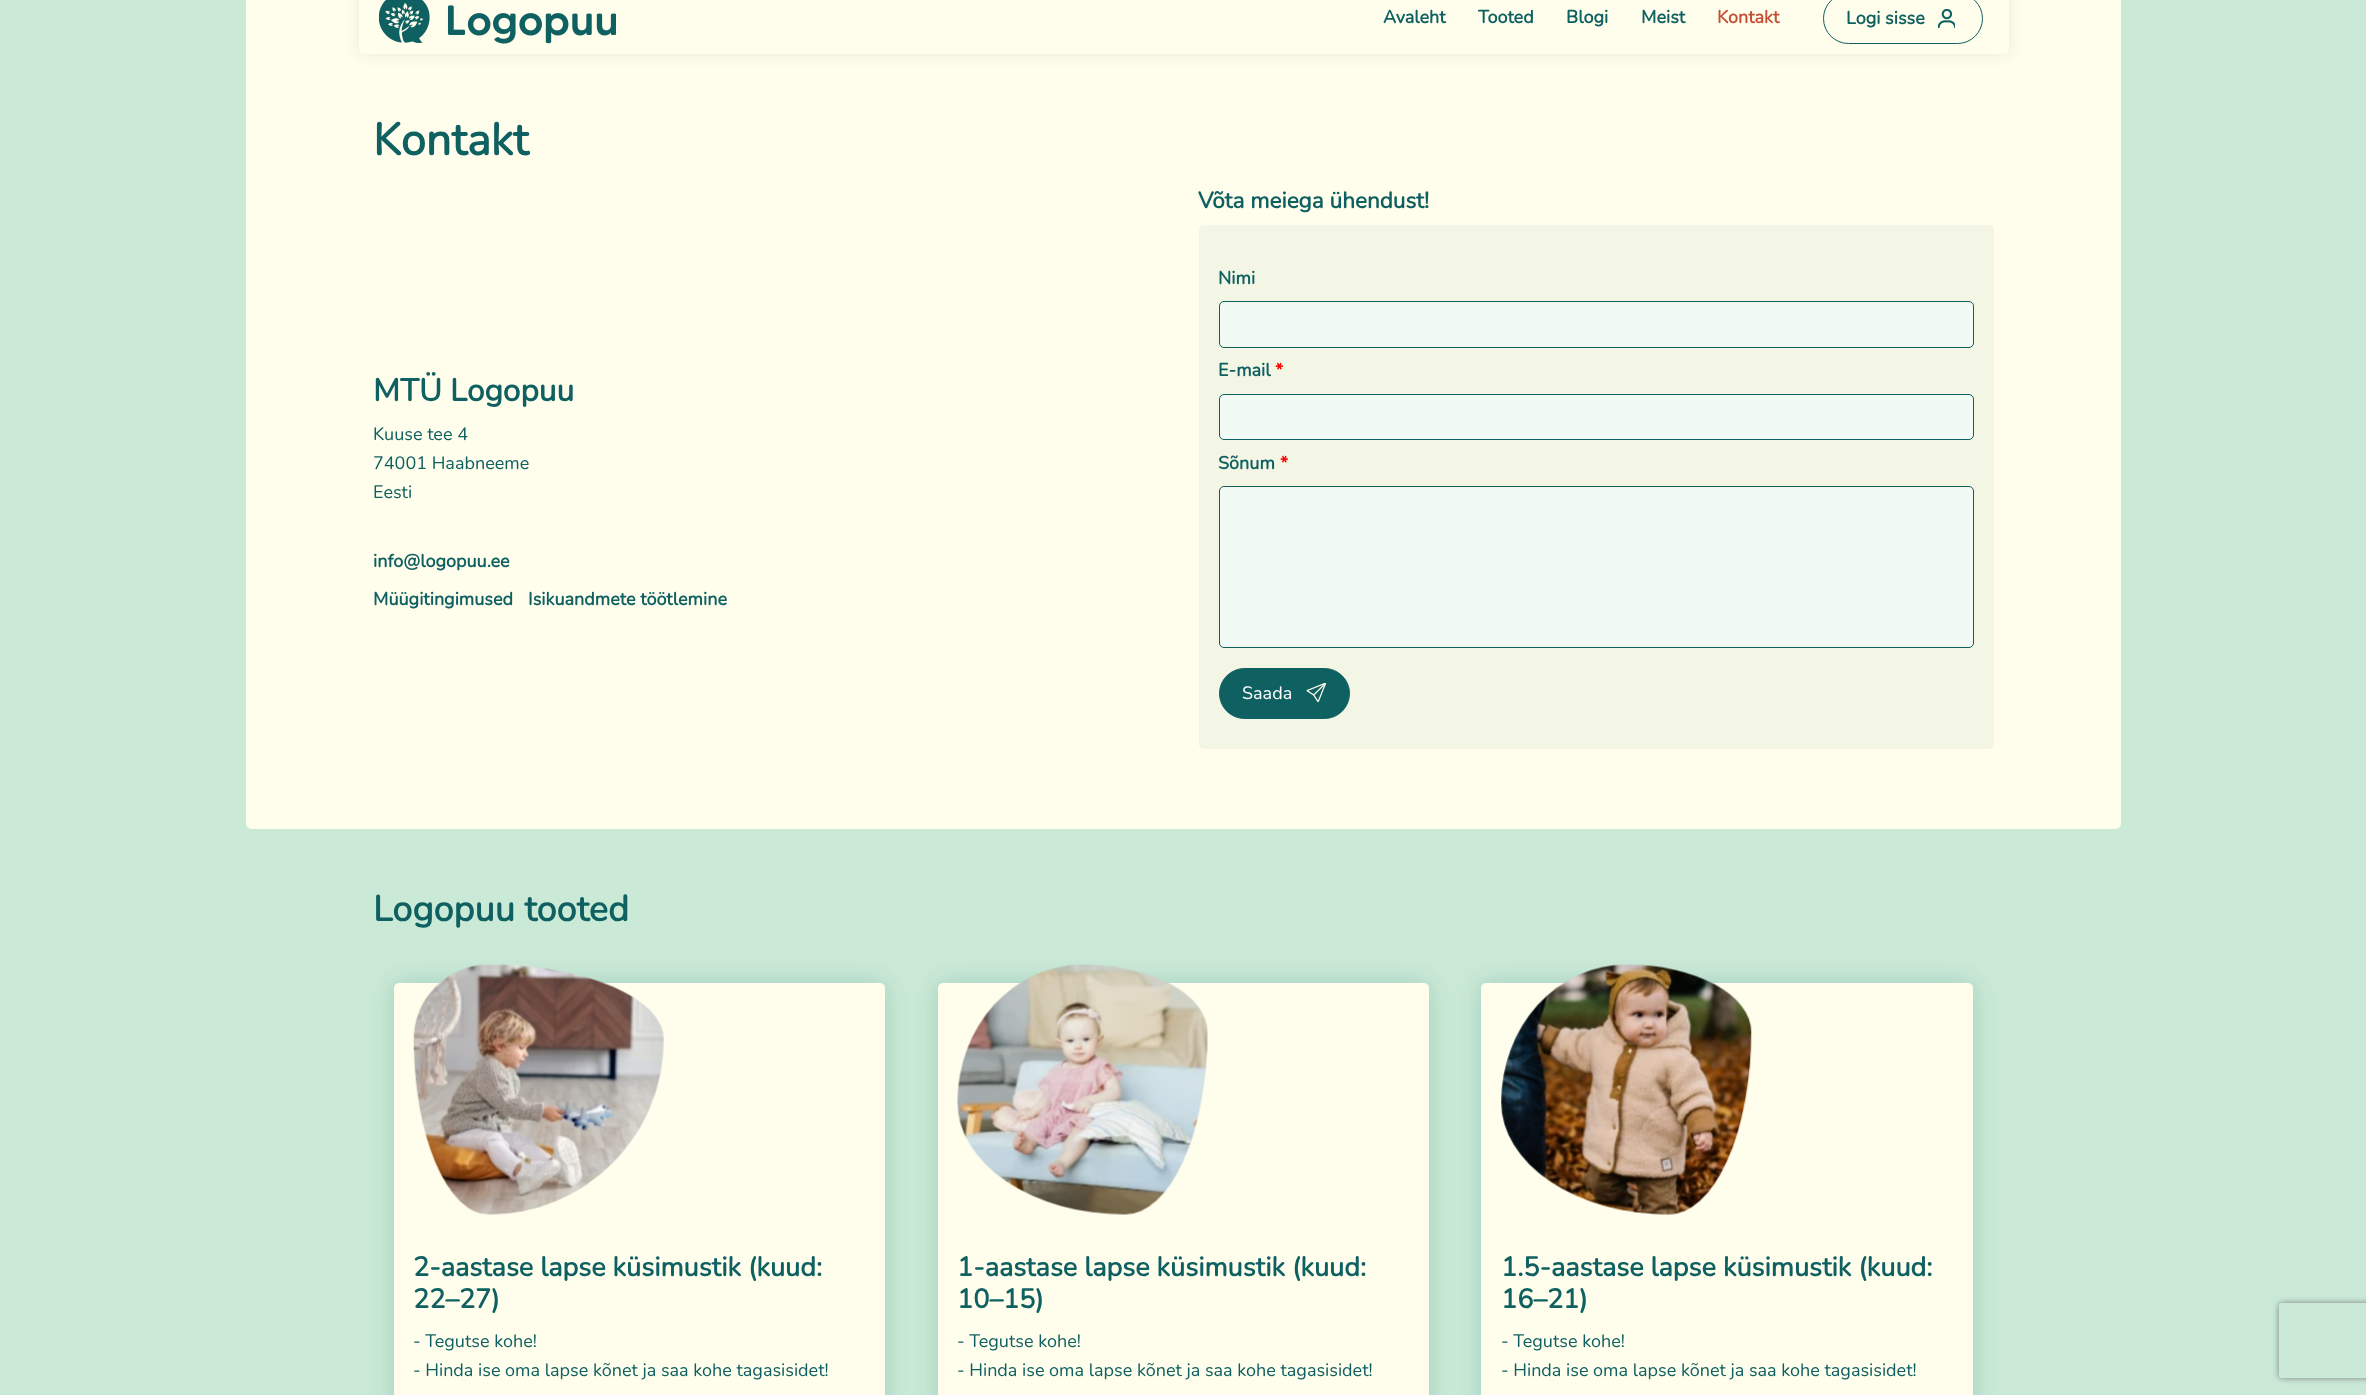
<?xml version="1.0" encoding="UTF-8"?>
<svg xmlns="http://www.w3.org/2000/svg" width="2366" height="1395">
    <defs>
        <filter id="blur1" x="-50%" y="-200%" width="200%" height="500%"><feGaussianBlur stdDeviation="7.5"/></filter>
        <clipPath id="clip1"><path d="M 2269 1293 H 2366 V 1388 H 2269 Z M 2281.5 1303 H 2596.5 C 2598 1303 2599 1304 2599 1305.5 V 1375.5 C 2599 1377 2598 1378 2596.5 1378 H 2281.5 C 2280 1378 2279 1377 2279 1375.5 V 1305.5 C 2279 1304 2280 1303 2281.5 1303 Z" clip-rule="evenodd"/></clipPath>
        <filter id="blur2" x="-50%" y="-200%" width="200%" height="500%"><feGaussianBlur stdDeviation="3"/></filter>
        <filter id="blur3" x="-50%" y="-200%" width="200%" height="500%"><feGaussianBlur stdDeviation="12.5"/></filter>
    </defs>
    <rect width="100%" height="100%" fill="#CAE9D6"/>
    <rect x="246" y="0" width="1875" height="54" fill="#FFFDEC"/>
    <path d="M 246 54 H 2121 V 823 C 2121 826.5 2118.5 829 2115 829 H 252 C 248.5 829 246 826.5 246 823 Z" fill="#FFFDEC"/>
    <rect x="359" y="-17" width="1650" height="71" rx="5" fill="#0F6061" fill-opacity="0.1" filter="url(#blur1)"/>
    <rect x="359" y="-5" width="1650" height="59" rx="5" fill="#FFFDEC"/>
    <image x="379" y="0" width="237" height="44" href="img_01.png"/>
    <text x="1383" y="23" font-family="Nunito" font-size="18" font-weight="700" fill="#0F6061">Avaleht</text>
    <text x="1478" y="23" font-family="Nunito" font-size="18" font-weight="700" fill="#0F6061">Tooted</text>
    <text x="1566" y="23" font-family="Nunito" font-size="18" font-weight="700" fill="#0F6061">Blogi</text>
    <text x="1641" y="23" font-family="Nunito" font-size="18" font-weight="700" fill="#0F6061">Meist</text>
    <text x="1717" y="23" font-family="Nunito" font-size="18" font-weight="700" fill="#C65036">Kontakt</text>
    <rect x="1823.5" y="-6.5" width="159" height="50" rx="25" fill="none" stroke="#0F6061"/>
    <text x="1846" y="24" font-family="Nunito" font-size="18" font-weight="700" fill="#0F6061">Logi sisse</text>
    <image x="1938" y="9" width="17" height="19" href="img_02.png"/>
    <text x="373" y="155" font-family="Nunito" font-size="45" font-weight="700" fill="#0F6061">Kontakt</text>
    <text x="373" y="401" font-family="Nunito" font-size="31.5" font-weight="700" fill="#0F6061">MTÜ Logopuu</text>
    <text font-family="Nunito" font-size="18" fill="#0F6061">
        <tspan x="373" y="440">Kuuse tee 4</tspan>
        <tspan x="373" y="469">74001 Haabneeme</tspan>
        <tspan x="373" y="498">Eesti</tspan>
    </text>
    <text x="373" y="567" font-family="Nunito" font-size="18" font-weight="700" fill="#0F6061">info@logopuu.ee</text>
    <text x="373" y="605" font-family="Nunito" font-size="18" font-weight="700" fill="#0F6061">Müügitingimused</text>
    <text x="528" y="605" font-family="Nunito" font-size="18" font-weight="700" fill="#0F6061">Isikuandmete töötlemine</text>
    <text x="1198" y="208" font-family="Nunito" font-size="22.5" font-weight="700" fill="#0F6061">Võta meiega ühendust!</text>
    <rect x="1199" y="225" width="795" height="524" rx="5" fill="#F3F5E5"/>
    <text x="1218" y="284" font-family="Nunito" font-size="18" font-weight="700" fill="#0F6061">Nimi</text>
    <rect x="1220" y="303" width="753" height="43" rx="4" fill="#F2FAF5"/>
    <rect x="1219.5" y="301.5" width="754" height="46" rx="4.5" fill="none" stroke="#0F6061"/>
    <text x="1218" y="376" font-family="Nunito" font-size="18" font-weight="700" fill="#0F6061">E-mail</text>
    <text x="1275" y="376" font-family="Nunito" font-size="18" font-weight="700" fill="#FF0000">*</text>
    <rect x="1219.5" y="394.5" width="754" height="45" rx="4.5" fill="#F2FAF5" stroke="#0F6061"/>
    <text x="1218" y="469" font-family="Nunito" font-size="18" font-weight="700" fill="#0F6061">Sõnum</text>
    <text x="1280" y="469" font-family="Nunito" font-size="18" font-weight="700" fill="#FF0000">*</text>
    <rect x="1220" y="488" width="753" height="158" rx="4" fill="#F2FAF5"/>
    <rect x="1219.5" y="486.5" width="754" height="161" rx="4.5" fill="none" stroke="#0F6061"/>
    <rect x="1219.5" y="668.5" width="130" height="50" rx="25" fill="#0F6061" stroke="#0F6061"/>
    <text x="1242" y="699" font-family="Nunito" font-size="18" fill="#FFFFFF">Saada</text>
    <image x="1306" y="683" width="20" height="20" href="img_03.png"/>
    <g clip-path="url(#clip1)">
        <rect x="2279" y="1303" width="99" height="75" rx="2.5" fill="#808080" filter="url(#blur2)"/>
    </g>
    <text x="373" y="921" font-family="Nunito" font-size="36" font-weight="700" fill="#0F6061">Logopuu tooted</text>
    <rect x="394" y="983" width="491" height="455" rx="5" fill="#0F6061" fill-opacity="0.2" filter="url(#blur3)"/>
    <rect x="394" y="983" width="491" height="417" rx="5" fill="#FFFDEC"/>
    <image x="413" y="964" width="251" height="251" href="img_04.png"/>
    <text font-family="Nunito" font-size="27" font-weight="700" fill="#0F6061">
        <tspan x="413" y="1276">2-aastase lapse küsimustik (kuud:</tspan>
        <tspan x="413" y="1308">22–27)</tspan>
    </text>
    <text font-family="Nunito" font-size="18" fill="#0F6061">
        <tspan x="413" y="1347">- Tegutse kohe!</tspan>
        <tspan x="413" y="1376">- Hinda ise oma lapse kõnet ja saa kohe tagasisidet!</tspan>
    </text>
    <rect x="938" y="983" width="491" height="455" rx="5" fill="#0F6061" fill-opacity="0.2" filter="url(#blur3)"/>
    <rect x="938" y="983" width="491" height="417" rx="5" fill="#FFFDEC"/>
    <image x="957" y="964" width="251" height="251" href="img_05.png"/>
    <text font-family="Nunito" font-size="27" font-weight="700" fill="#0F6061">
        <tspan x="957" y="1276">1-aastase lapse küsimustik (kuud:</tspan>
        <tspan x="957" y="1308">10–15)</tspan>
    </text>
    <text font-family="Nunito" font-size="18" fill="#0F6061">
        <tspan x="957" y="1347">- Tegutse kohe!</tspan>
        <tspan x="957" y="1376">- Hinda ise oma lapse kõnet ja saa kohe tagasisidet!</tspan>
    </text>
    <rect x="1481" y="983" width="492" height="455" rx="5" fill="#0F6061" fill-opacity="0.2" filter="url(#blur3)"/>
    <rect x="1481" y="983" width="492" height="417" rx="5" fill="#FFFDEC"/>
    <image x="1501" y="964" width="251" height="251" href="img_06.png"/>
    <text font-family="Nunito" font-size="27" font-weight="700" fill="#0F6061">
        <tspan x="1501" y="1276">1.5-aastase lapse küsimustik (kuud:</tspan>
        <tspan x="1501" y="1308">16–21)</tspan>
    </text>
    <text font-family="Nunito" font-size="18" fill="#0F6061">
        <tspan x="1501" y="1347">- Tegutse kohe!</tspan>
        <tspan x="1501" y="1376">- Hinda ise oma lapse kõnet ja saa kohe tagasisidet!</tspan>
    </text>
</svg>
